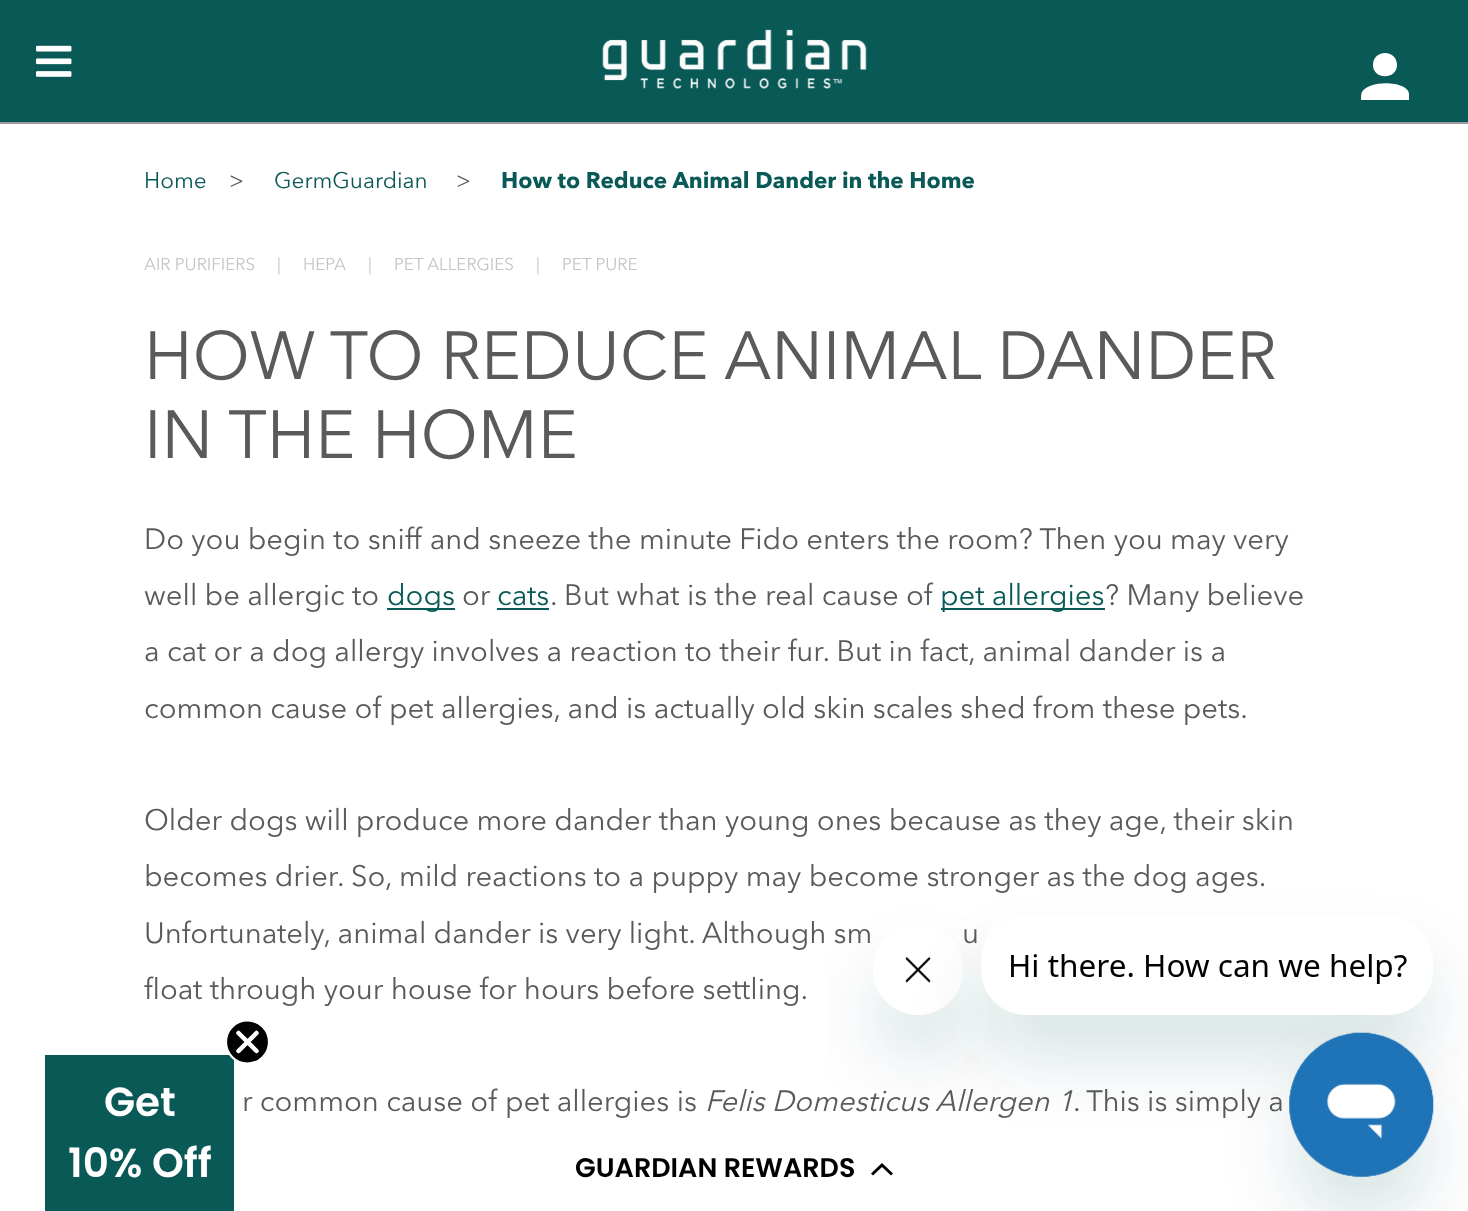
<?xml version="1.0" encoding="UTF-8"?>
<svg xmlns="http://www.w3.org/2000/svg" width="1468" height="1211">
    <defs>
        <clipPath id="clip1"><rect x="225" y="1019" width="45" height="45"/></clipPath>
        <clipPath id="clip2"><path d="M 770 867 H 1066 V 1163 H 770 Z M 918 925 C 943 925 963 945 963 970 C 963 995 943 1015 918 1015 C 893 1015 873 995 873 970 C 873 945 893 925 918 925 Z" clip-rule="evenodd"/></clipPath>
        <filter id="blur1" x="-50%" y="-200%" width="200%" height="500%"><feGaussianBlur stdDeviation="34"/></filter>
        <clipPath id="clip3"><path d="M 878 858 H 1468 V 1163 H 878 Z M 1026 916 H 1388 C 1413 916 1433 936 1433 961 V 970 C 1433 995 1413 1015 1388 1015 H 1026 C 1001 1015 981 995 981 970 V 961 C 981 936 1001 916 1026 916 Z" clip-rule="evenodd"/></clipPath>
    </defs>
    <rect width="100%" height="100%" fill="#FFFFFF"/>
    <rect x="0" y="0" width="1468" height="122" fill="#095957"/>
    <rect x="0" y="122" width="1468" height="2" fill="#9C9C9C"/>
    <image x="36" y="45" width="36" height="32" href="img_01.png"/>
    <image x="602" y="29" width="265" height="60" href="img_02.png"/>
    <path d="M 1409 94 V 100 H 1361 C 1361 98 1361 94 1362 92 C 1369 79 1409 81 1409 94 Z M 1373 65 C 1373 49 1397 49 1397 65 C 1397 80 1373 80 1373 65 Z" fill="#FFFFFF"/>
    <text x="144" y="188" font-family="Avenir Next" font-size="22.5" fill="#095957">Home</text>
    <text x="229" y="188" font-family="Avenir Next" font-size="22.5" fill="#595A5A">&gt;</text>
    <text x="274" y="188" font-family="Avenir Next" font-size="22.5" fill="#095957">GermGuardian</text>
    <text x="456" y="188" font-family="Avenir Next" font-size="22.5" fill="#595A5A">&gt;</text>
    <text x="501" y="188" font-family="Avenir Next" font-size="22.5" font-weight="700" fill="#095957">How to Reduce Animal Dander in the Home</text>
    <text x="144" y="270" font-family="Avenir Next" font-size="17" fill="#C4C4C4">AIR PURIFIERS</text>
    <text x="277" y="270" font-family="Avenir Next" font-size="17" fill="#C4C4C4">|</text>
    <text x="303" y="270" font-family="Avenir Next" font-size="17" fill="#C4C4C4">HEPA</text>
    <text x="368" y="270" font-family="Avenir Next" font-size="17" fill="#C4C4C4">|</text>
    <text x="394" y="270" font-family="Avenir Next" font-size="17" fill="#C4C4C4">PET ALLERGIES</text>
    <text x="536" y="270" font-family="Avenir Next" font-size="17" fill="#C4C4C4">|</text>
    <text x="562" y="270" font-family="Avenir Next" font-size="17" fill="#C4C4C4">PET PURE</text>
    <text font-family="Avenir Next" font-size="67.5" fill="#595A5A">
        <tspan x="144" y="379">HOW TO REDUCE ANIMAL DANDER</tspan>
        <tspan x="144" y="458">IN THE HOME</tspan>
    </text>
    <text font-family="Avenir Next" font-size="29.25" fill="#595A5A">
        <tspan x="144" y="549">Do you begin to sniff and sneeze the minute Fido enters the room? Then you may very</tspan>
        <tspan x="144" y="605">well be allergic to</tspan>
    </text>
    <rect x="387" y="608" width="68" height="2" fill="#095957"/>
    <text x="387" y="605" font-family="Avenir Next" font-size="29.25" fill="#095957">dogs</text>
    <text x="462" y="605" font-family="Avenir Next" font-size="29.25" fill="#595A5A">or</text>
    <text x="497" y="605" font-family="Avenir Next" font-size="29.25" fill="#095957">cats</text>
    <rect x="497" y="608" width="52" height="2" fill="#095957"/>
    <text x="550" y="605" font-family="Avenir Next" font-size="29.25" fill="#595A5A">. But what is the real cause of</text>
    <rect x="941" y="608" width="164" height="2" fill="#095957"/>
    <text x="940" y="605" font-family="Avenir Next" font-size="29.25" fill="#095957">pet allergies</text>
    <text x="1105" y="605" font-family="Avenir Next" font-size="29.25" fill="#595A5A">? Many believe</text>
    <text font-family="Avenir Next" font-size="29.25" fill="#595A5A">
        <tspan x="144" y="661">a cat or a dog allergy involves a reaction to their fur. But in fact, animal dander is a</tspan>
        <tspan x="144" y="718">common cause of pet allergies, and is actually old skin scales shed from these pets.</tspan>
    </text>
    <text font-family="Avenir Next" font-size="29.25" fill="#595A5A">
        <tspan x="144" y="830">Older dogs will produce more dander than young ones because as they age, their skin</tspan>
        <tspan x="144" y="886">becomes drier. So, mild reactions to a puppy may become stronger as the dog ages.</tspan>
        <tspan x="144" y="943">Unfortunately, animal dander is very light. Although sm</tspan>
    </text>
    <text x="962" y="943" font-family="Avenir Next" font-size="29.25" fill="#595A5A">u</text>
    <text x="144" y="999" font-family="Avenir Next" font-size="29.25" fill="#595A5A">float through your house for hours before settling.</text>
    <text x="242" y="1111" font-family="Avenir Next" font-size="29.25" fill="#595A5A">r common cause of pet allergies is</text>
    <text x="705" y="1111" font-family="Avenir Next" font-size="29.25" font-style="italic" fill="#595A5A">Felis Domesticus Allergen 1</text>
    <text x="1073" y="1111" font-family="Avenir Next" font-size="29.25" fill="#595A5A">. This is simply a</text>
    <rect x="45" y="1055" width="189" height="156" fill="#095957"/>
    <circle cx="247.5" cy="1042" r="21.5" fill="#000000"/>
    <g clip-path="url(#clip1)">
        <circle cx="247.5" cy="1042" r="21.5" fill="none" stroke="#FFFFFF" stroke-width="2.2"/>
    </g>
    <path d="M 238.5 1033 L 256.5 1051 M 238.5 1051 L 256.5 1033 Z" fill="none" stroke="#FFFFFF" stroke-width="4.5" stroke-linecap="round" stroke-linejoin="round"/>
    <text x="104" y="1116" font-family="Poppins" font-size="40.5" font-weight="600" fill="#FFFFFF">Get</text>
    <text x="68" y="1177" font-family="Poppins" font-size="40.5" font-weight="600" fill="#FFFFFF">10% Off</text>
    <text x="575" y="1177" font-family="Poppins" font-size="27" font-weight="600" fill="#000000">GUARDIAN REWARDS</text>
    <path d="M 882 1167 L 873 1175.5 L 871 1173.5 L 882 1163 L 893 1173.5 L 891 1175.5 Z" fill="#000000"/>
    <g clip-path="url(#clip2)">
        <rect x="873" y="970" width="90" height="90" rx="45" fill="#17494D" fill-opacity="0.15" filter="url(#blur1)"/>
    </g>
    <image x="882" y="928" width="73" height="87" href="img_04.png"/>
    <g clip-path="url(#clip3)">
        <rect x="981" y="961" width="452" height="99" rx="45" fill="#17494D" fill-opacity="0.15" filter="url(#blur1)"/>
    </g>
    <image x="982" y="920" width="425" height="83" href="img_03.png"/>
    <rect x="1289" y="1078" width="144" height="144" rx="72" fill="#17494D" fill-opacity="0.15" filter="url(#blur1)"/>
    <image x="1289" y="1032" width="145" height="145" href="img_05.png"/>
</svg>
